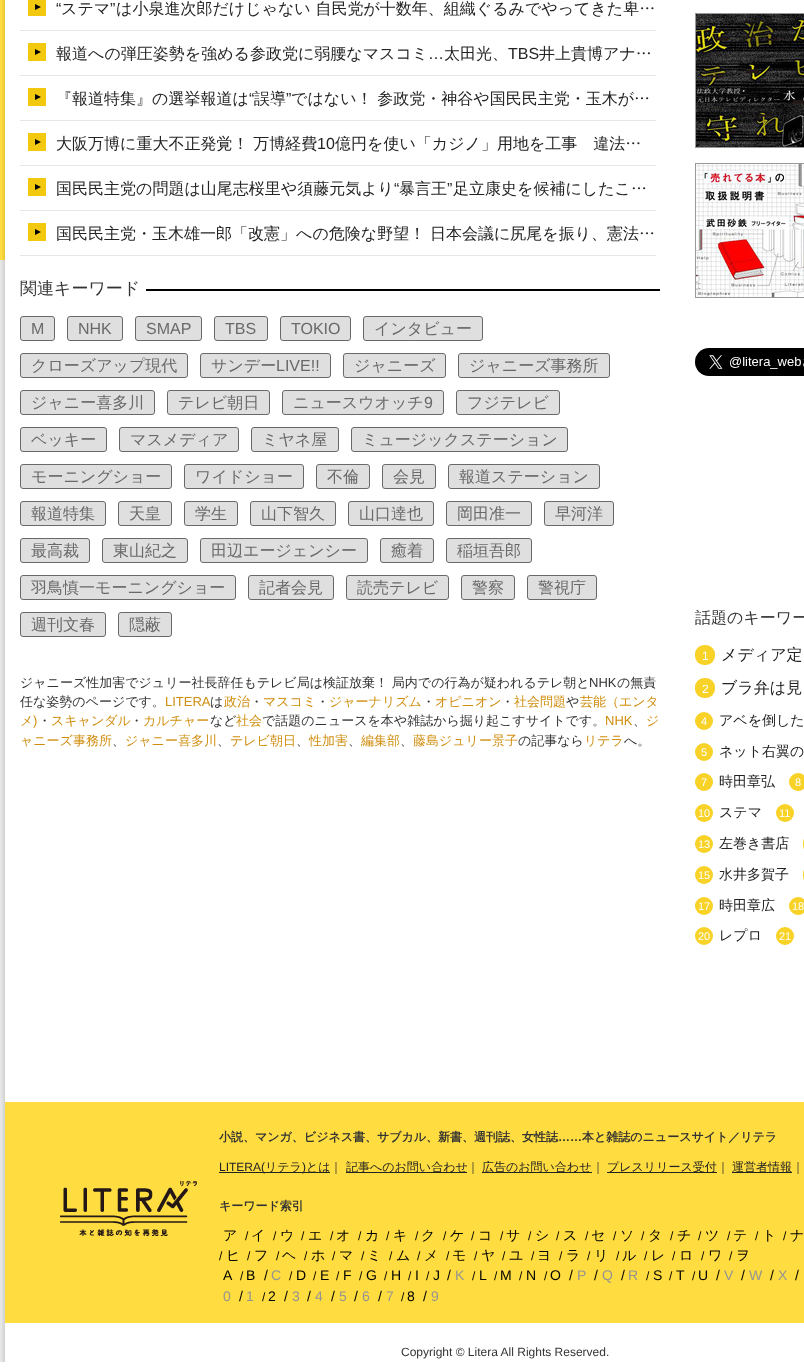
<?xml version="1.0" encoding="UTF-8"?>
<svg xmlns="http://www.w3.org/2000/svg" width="804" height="1369">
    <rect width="100%" height="100%" fill="#FFFFFF"/>
    <rect x="0" y="260" width="5" height="1102" fill="#E6E6E6"/>
    <rect x="0" y="0" width="5" height="260" fill="#FFDC3F"/>
    <image x="2" y="0" width="802" height="1012" href="img_01.png"/>
    <rect x="20" y="30" width="636" height="1" fill="#E6E6E6"/>
    <rect x="28" y="0" width="18" height="16" fill="#F2C90F"/>
    <text x="56" y="14" font-family="Liberation Sans" font-size="16" fill="#232323">“</text>
    <text x="61" y="14" font-family="WenQuanYi Zen Hei" font-size="16" font-weight="500" fill="#232323">ステマ</text>
    <text x="110" y="14" font-family="Liberation Sans" font-size="16" fill="#232323">”</text>
    <text x="116" y="14" font-family="WenQuanYi Zen Hei" font-size="16" font-weight="500" fill="#232323">は小泉進次郎だけじゃない 自民党が十数年、組織ぐるみでやってきた卑…</text>
    <path d="M 35 10 V 4 L 41 7 Z" fill="#000000"/>
    <rect x="20" y="75" width="636" height="1" fill="#E6E6E6"/>
    <rect x="28" y="43" width="18" height="18" fill="#F2C90F"/>
    <text x="56" y="59" font-family="WenQuanYi Zen Hei" font-size="16" font-weight="500" fill="#232323">報道への弾圧姿勢を強める参政党に弱腰なマスコミ</text>
    <text x="428" y="59" font-family="Liberation Sans" font-size="16" fill="#232323">…</text>
    <text x="444" y="59" font-family="WenQuanYi Zen Hei" font-size="16" font-weight="500" fill="#232323">太田光、</text>
    <text x="508" y="59" font-family="Liberation Sans" font-size="16" fill="#232323">TBS</text>
    <text x="539" y="59" font-family="WenQuanYi Zen Hei" font-size="16" font-weight="500" fill="#232323">井上貴博アナ…</text>
    <path d="M 35 55 V 49 L 41 52 Z" fill="#000000"/>
    <rect x="20" y="120" width="636" height="1" fill="#E6E6E6"/>
    <rect x="28" y="88" width="18" height="18" fill="#F2C90F"/>
    <text x="56" y="104" font-family="WenQuanYi Zen Hei" font-size="16" font-weight="500" fill="#232323">『報道特集』の選挙報道は</text>
    <text x="249" y="104" font-family="Liberation Sans" font-size="16" fill="#232323">“</text>
    <text x="254" y="104" font-family="WenQuanYi Zen Hei" font-size="16" font-weight="500" fill="#232323">誤導</text>
    <text x="286" y="104" font-family="Liberation Sans" font-size="16" fill="#232323">”</text>
    <text x="291" y="104" font-family="WenQuanYi Zen Hei" font-size="16" font-weight="500" fill="#232323">ではない！ 参政党・神谷や国民民主党・玉木が…</text>
    <path d="M 35 100 V 94 L 41 97 Z" fill="#000000"/>
    <rect x="20" y="165" width="636" height="1" fill="#E6E6E6"/>
    <rect x="28" y="133" width="18" height="18" fill="#F2C90F"/>
    <text x="56" y="149" font-family="WenQuanYi Zen Hei" font-size="16" font-weight="500" fill="#232323">大阪万博に重大不正発覚！ 万博経費</text>
    <text x="317" y="149" font-family="Liberation Sans" font-size="16" fill="#232323">10</text>
    <text x="335" y="149" font-family="WenQuanYi Zen Hei" font-size="16" font-weight="500" fill="#232323">億円を使い「カジノ」用地を工事　違法…</text>
    <path d="M 35 145 V 139 L 41 142 Z" fill="#000000"/>
    <rect x="20" y="210" width="636" height="1" fill="#E6E6E6"/>
    <rect x="28" y="178" width="18" height="18" fill="#F2C90F"/>
    <text x="56" y="194" font-family="WenQuanYi Zen Hei" font-size="16" font-weight="500" fill="#232323">国民民主党の問題は山尾志桜里や須藤元気より</text>
    <text x="394" y="194" font-family="Liberation Sans" font-size="16" fill="#232323">“</text>
    <text x="399" y="194" font-family="WenQuanYi Zen Hei" font-size="16" font-weight="500" fill="#232323">暴言王</text>
    <text x="447" y="194" font-family="Liberation Sans" font-size="16" fill="#232323">”</text>
    <text x="453" y="194" font-family="WenQuanYi Zen Hei" font-size="16" font-weight="500" fill="#232323">足立康史を候補にしたこ…</text>
    <path d="M 35 190 V 184 L 41 187 Z" fill="#000000"/>
    <rect x="20" y="255" width="636" height="1" fill="#E6E6E6"/>
    <rect x="28" y="223" width="18" height="18" fill="#F2C90F"/>
    <text x="56" y="239" font-family="WenQuanYi Zen Hei" font-size="16" font-weight="500" fill="#232323">国民民主党・玉木雄一郎「改憲」への危険な野望！ 日本会議に尻尾を振り、憲法…</text>
    <path d="M 35 235 V 229 L 41 232 Z" fill="#000000"/>
    <text x="20" y="294" font-family="WenQuanYi Zen Hei" font-size="17" font-weight="500" fill="#333333">関連キーワード</text>
    <rect x="146" y="289" width="514" height="2" fill="#000000"/>
    <rect x="20.5" y="316.5" width="34" height="24" rx="2.5" fill="#DFDFDF" stroke="#696969"/>
    <text x="31" y="334" font-family="Liberation Sans" font-size="16" fill="#696969">M</text>
    <rect x="67.5" y="316.5" width="55" height="24" rx="2.5" fill="#DFDFDF" stroke="#696969"/>
    <text x="78" y="334" font-family="Liberation Sans" font-size="16" fill="#696969">NHK</text>
    <rect x="135.5" y="316.5" width="66" height="24" rx="2.5" fill="#DFDFDF" stroke="#696969"/>
    <text x="146" y="334" font-family="Liberation Sans" font-size="16" fill="#696969">SMAP</text>
    <rect x="214.5" y="316.5" width="53" height="24" rx="2.5" fill="#DFDFDF" stroke="#696969"/>
    <text x="225" y="334" font-family="Liberation Sans" font-size="16" fill="#696969">TBS</text>
    <rect x="280.5" y="316.5" width="70" height="24" rx="2.5" fill="#DFDFDF" stroke="#696969"/>
    <text x="291" y="334" font-family="Liberation Sans" font-size="16" fill="#696969">TOKIO</text>
    <rect x="363.5" y="316.5" width="119" height="24" rx="2.5" fill="#DFDFDF" stroke="#696969"/>
    <text x="374" y="334" font-family="WenQuanYi Zen Hei" font-size="16" font-weight="500" fill="#696969">インタビュー</text>
    <rect x="20.5" y="353.5" width="167" height="24" rx="2.5" fill="#DFDFDF" stroke="#696969"/>
    <text x="31" y="371" font-family="WenQuanYi Zen Hei" font-size="16" font-weight="500" fill="#696969">クローズアップ現代</text>
    <rect x="200.5" y="353.5" width="130" height="24" rx="2.5" fill="#DFDFDF" stroke="#696969"/>
    <text x="211" y="371" font-family="WenQuanYi Zen Hei" font-size="16" font-weight="500" fill="#696969">サンデー</text>
    <text x="276" y="371" font-family="Liberation Sans" font-size="16" fill="#696969">LIVE!!</text>
    <rect x="343.5" y="353.5" width="102" height="24" rx="2.5" fill="#DFDFDF" stroke="#696969"/>
    <text x="354" y="371" font-family="WenQuanYi Zen Hei" font-size="16" font-weight="500" fill="#696969">ジャニーズ</text>
    <rect x="458.5" y="353.5" width="151" height="24" rx="2.5" fill="#DFDFDF" stroke="#696969"/>
    <text x="469" y="371" font-family="WenQuanYi Zen Hei" font-size="16" font-weight="500" fill="#696969">ジャニーズ事務所</text>
    <rect x="20.5" y="390.5" width="134" height="24" rx="2.5" fill="#DFDFDF" stroke="#696969"/>
    <text x="31" y="408" font-family="WenQuanYi Zen Hei" font-size="16" font-weight="500" fill="#696969">ジャニー喜多川</text>
    <rect x="167.5" y="390.5" width="102" height="24" rx="2.5" fill="#DFDFDF" stroke="#696969"/>
    <text x="178" y="408" font-family="WenQuanYi Zen Hei" font-size="16" font-weight="500" fill="#696969">テレビ朝日</text>
    <rect x="282.5" y="390.5" width="161" height="24" rx="2.5" fill="#DFDFDF" stroke="#696969"/>
    <text x="293" y="408" font-family="WenQuanYi Zen Hei" font-size="16" font-weight="500" fill="#696969">ニュースウオッチ</text>
    <text x="424" y="408" font-family="Liberation Sans" font-size="16" fill="#696969">9</text>
    <rect x="456.5" y="390.5" width="103" height="24" rx="2.5" fill="#DFDFDF" stroke="#696969"/>
    <text x="467" y="408" font-family="WenQuanYi Zen Hei" font-size="16" font-weight="500" fill="#696969">フジテレビ</text>
    <rect x="20.5" y="427.5" width="86" height="24" rx="2.5" fill="#DFDFDF" stroke="#696969"/>
    <text x="31" y="445" font-family="WenQuanYi Zen Hei" font-size="16" font-weight="500" fill="#696969">ベッキー</text>
    <rect x="119.5" y="427.5" width="119" height="24" rx="2.5" fill="#DFDFDF" stroke="#696969"/>
    <text x="130" y="445" font-family="WenQuanYi Zen Hei" font-size="16" font-weight="500" fill="#696969">マスメディア</text>
    <rect x="251.5" y="427.5" width="87" height="24" rx="2.5" fill="#DFDFDF" stroke="#696969"/>
    <text x="262" y="445" font-family="WenQuanYi Zen Hei" font-size="16" font-weight="500" fill="#696969">ミヤネ屋</text>
    <rect x="351.5" y="427.5" width="216" height="24" rx="2.5" fill="#DFDFDF" stroke="#696969"/>
    <text x="362" y="445" font-family="WenQuanYi Zen Hei" font-size="16" font-weight="500" fill="#696969">ミュージックステーション</text>
    <rect x="20.5" y="464.5" width="151" height="24" rx="2.5" fill="#DFDFDF" stroke="#696969"/>
    <text x="31" y="482" font-family="WenQuanYi Zen Hei" font-size="16" font-weight="500" fill="#696969">モーニングショー</text>
    <rect x="184.5" y="464.5" width="119" height="24" rx="2.5" fill="#DFDFDF" stroke="#696969"/>
    <text x="195" y="482" font-family="WenQuanYi Zen Hei" font-size="16" font-weight="500" fill="#696969">ワイドショー</text>
    <rect x="316.5" y="464.5" width="53" height="24" rx="2.5" fill="#DFDFDF" stroke="#696969"/>
    <text x="327" y="482" font-family="WenQuanYi Zen Hei" font-size="16" font-weight="500" fill="#696969">不倫</text>
    <rect x="382.5" y="464.5" width="53" height="24" rx="2.5" fill="#DFDFDF" stroke="#696969"/>
    <text x="393" y="482" font-family="WenQuanYi Zen Hei" font-size="16" font-weight="500" fill="#696969">会見</text>
    <rect x="448.5" y="464.5" width="151" height="24" rx="2.5" fill="#DFDFDF" stroke="#696969"/>
    <text x="459" y="482" font-family="WenQuanYi Zen Hei" font-size="16" font-weight="500" fill="#696969">報道ステーション</text>
    <rect x="20.5" y="501.5" width="85" height="24" rx="2.5" fill="#DFDFDF" stroke="#696969"/>
    <text x="31" y="519" font-family="WenQuanYi Zen Hei" font-size="16" font-weight="500" fill="#696969">報道特集</text>
    <rect x="118.5" y="501.5" width="53" height="24" rx="2.5" fill="#DFDFDF" stroke="#696969"/>
    <text x="129" y="519" font-family="WenQuanYi Zen Hei" font-size="16" font-weight="500" fill="#696969">天皇</text>
    <rect x="184.5" y="501.5" width="53" height="24" rx="2.5" fill="#DFDFDF" stroke="#696969"/>
    <text x="195" y="519" font-family="WenQuanYi Zen Hei" font-size="16" font-weight="500" fill="#696969">学生</text>
    <rect x="250.5" y="501.5" width="85" height="24" rx="2.5" fill="#DFDFDF" stroke="#696969"/>
    <text x="261" y="519" font-family="WenQuanYi Zen Hei" font-size="16" font-weight="500" fill="#696969">山下智久</text>
    <rect x="348.5" y="501.5" width="85" height="24" rx="2.5" fill="#DFDFDF" stroke="#696969"/>
    <text x="359" y="519" font-family="WenQuanYi Zen Hei" font-size="16" font-weight="500" fill="#696969">山口達也</text>
    <rect x="446.5" y="501.5" width="85" height="24" rx="2.5" fill="#DFDFDF" stroke="#696969"/>
    <text x="457" y="519" font-family="WenQuanYi Zen Hei" font-size="16" font-weight="500" fill="#696969">岡田准一</text>
    <rect x="544.5" y="501.5" width="69" height="24" rx="2.5" fill="#DFDFDF" stroke="#696969"/>
    <text x="555" y="519" font-family="WenQuanYi Zen Hei" font-size="16" font-weight="500" fill="#696969">早河洋</text>
    <rect x="20.5" y="538.5" width="69" height="24" rx="2.5" fill="#DFDFDF" stroke="#696969"/>
    <text x="31" y="556" font-family="WenQuanYi Zen Hei" font-size="16" font-weight="500" fill="#696969">最高裁</text>
    <rect x="102.5" y="538.5" width="85" height="24" rx="2.5" fill="#DFDFDF" stroke="#696969"/>
    <text x="113" y="556" font-family="WenQuanYi Zen Hei" font-size="16" font-weight="500" fill="#696969">東山紀之</text>
    <rect x="200.5" y="538.5" width="167" height="24" rx="2.5" fill="#DFDFDF" stroke="#696969"/>
    <text x="211" y="556" font-family="WenQuanYi Zen Hei" font-size="16" font-weight="500" fill="#696969">田辺エージェンシー</text>
    <rect x="380.5" y="538.5" width="53" height="24" rx="2.5" fill="#DFDFDF" stroke="#696969"/>
    <text x="391" y="556" font-family="WenQuanYi Zen Hei" font-size="16" font-weight="500" fill="#696969">癒着</text>
    <rect x="446.5" y="538.5" width="85" height="24" rx="2.5" fill="#DFDFDF" stroke="#696969"/>
    <text x="457" y="556" font-family="WenQuanYi Zen Hei" font-size="16" font-weight="500" fill="#696969">稲垣吾郎</text>
    <rect x="20.5" y="575.5" width="215" height="24" rx="2.5" fill="#DFDFDF" stroke="#696969"/>
    <text x="31" y="593" font-family="WenQuanYi Zen Hei" font-size="16" font-weight="500" fill="#696969">羽鳥慎一モーニングショー</text>
    <rect x="248.5" y="575.5" width="85" height="24" rx="2.5" fill="#DFDFDF" stroke="#696969"/>
    <text x="259" y="593" font-family="WenQuanYi Zen Hei" font-size="16" font-weight="500" fill="#696969">記者会見</text>
    <rect x="346.5" y="575.5" width="102" height="24" rx="2.5" fill="#DFDFDF" stroke="#696969"/>
    <text x="357" y="593" font-family="WenQuanYi Zen Hei" font-size="16" font-weight="500" fill="#696969">読売テレビ</text>
    <rect x="461.5" y="575.5" width="53" height="24" rx="2.5" fill="#DFDFDF" stroke="#696969"/>
    <text x="472" y="593" font-family="WenQuanYi Zen Hei" font-size="16" font-weight="500" fill="#696969">警察</text>
    <rect x="527.5" y="575.5" width="69" height="24" rx="2.5" fill="#DFDFDF" stroke="#696969"/>
    <text x="538" y="593" font-family="WenQuanYi Zen Hei" font-size="16" font-weight="500" fill="#696969">警視庁</text>
    <rect x="20.5" y="612.5" width="85" height="24" rx="2.5" fill="#DFDFDF" stroke="#696969"/>
    <text x="31" y="630" font-family="WenQuanYi Zen Hei" font-size="16" font-weight="500" fill="#696969">週刊文春</text>
    <rect x="118.5" y="612.5" width="53" height="24" rx="2.5" fill="#DFDFDF" stroke="#696969"/>
    <text x="129" y="630" font-family="WenQuanYi Zen Hei" font-size="16" font-weight="500" fill="#696969">隠蔽</text>
    <text x="20" y="687" font-family="WenQuanYi Zen Hei" font-size="13" font-weight="500" fill="#333333">ジャニーズ性加害でジュリー社長辞任もテレビ局は検証放棄！ 局内での行為が疑われるテレ朝と</text>
    <text x="589" y="687" font-family="Liberation Sans" font-size="13" fill="#333333">NHK</text>
    <text x="617" y="687" font-family="WenQuanYi Zen Hei" font-size="13" font-weight="500" fill="#333333">の無責</text>
    <text x="20" y="706" font-family="WenQuanYi Zen Hei" font-size="13" font-weight="500" fill="#333333">任な姿勢のページです。</text>
    <text x="165" y="706" font-family="Liberation Sans" font-size="13" fill="#D08E0E">LITERA</text>
    <text x="210" y="706" font-family="WenQuanYi Zen Hei" font-size="13" font-weight="500" fill="#333333">は</text>
    <text x="224" y="706" font-family="WenQuanYi Zen Hei" font-size="13" font-weight="500" fill="#D08E0E">政治</text>
    <text x="250" y="706" font-family="WenQuanYi Zen Hei" font-size="13" font-weight="500" fill="#333333">・</text>
    <text x="263" y="706" font-family="WenQuanYi Zen Hei" font-size="13" font-weight="500" fill="#D08E0E">マスコミ</text>
    <text x="316" y="706" font-family="WenQuanYi Zen Hei" font-size="13" font-weight="500" fill="#333333">・</text>
    <text x="329" y="706" font-family="WenQuanYi Zen Hei" font-size="13" font-weight="500" fill="#D08E0E">ジャーナリズム</text>
    <text x="422" y="706" font-family="WenQuanYi Zen Hei" font-size="13" font-weight="500" fill="#333333">・</text>
    <text x="435" y="706" font-family="WenQuanYi Zen Hei" font-size="13" font-weight="500" fill="#D08E0E">オピニオン</text>
    <text x="501" y="706" font-family="WenQuanYi Zen Hei" font-size="13" font-weight="500" fill="#333333">・</text>
    <text x="514" y="706" font-family="WenQuanYi Zen Hei" font-size="13" font-weight="500" fill="#D08E0E">社会問題</text>
    <text x="566" y="706" font-family="WenQuanYi Zen Hei" font-size="13" font-weight="500" fill="#333333">や</text>
    <text x="580" y="706" font-family="WenQuanYi Zen Hei" font-size="13" font-weight="500" fill="#D08E0E">芸能（エンタ</text>
    <text x="20" y="725" font-family="WenQuanYi Zen Hei" font-size="13" font-weight="500" fill="#D08E0E">メ</text>
    <text x="33" y="725" font-family="Liberation Sans" font-size="13" fill="#D08E0E">)</text>
    <text x="38" y="725" font-family="WenQuanYi Zen Hei" font-size="13" font-weight="500" fill="#333333">・</text>
    <text x="51" y="725" font-family="WenQuanYi Zen Hei" font-size="13" font-weight="500" fill="#D08E0E">スキャンダル</text>
    <text x="130" y="725" font-family="WenQuanYi Zen Hei" font-size="13" font-weight="500" fill="#333333">・</text>
    <text x="143" y="725" font-family="WenQuanYi Zen Hei" font-size="13" font-weight="500" fill="#D08E0E">カルチャー</text>
    <text x="210" y="725" font-family="WenQuanYi Zen Hei" font-size="13" font-weight="500" fill="#333333">など</text>
    <text x="236" y="725" font-family="WenQuanYi Zen Hei" font-size="13" font-weight="500" fill="#D08E0E">社会</text>
    <text x="262" y="725" font-family="WenQuanYi Zen Hei" font-size="13" font-weight="500" fill="#333333">で話題のニュースを本や雑誌から掘り起こすサイトです。</text>
    <text x="605" y="725" font-family="Liberation Sans" font-size="13" fill="#D08E0E">NHK</text>
    <text x="646" y="725" font-family="WenQuanYi Zen Hei" font-size="13" font-weight="500" fill="#D08E0E">ジ</text>
    <text x="633" y="725" font-family="WenQuanYi Zen Hei" font-size="13" font-weight="500" fill="#333333">、</text>
    <text x="20" y="745" font-family="WenQuanYi Zen Hei" font-size="13" font-weight="500" fill="#D08E0E">ャニーズ事務所</text>
    <text x="112" y="745" font-family="WenQuanYi Zen Hei" font-size="13" font-weight="500" fill="#333333">、</text>
    <text x="125" y="745" font-family="WenQuanYi Zen Hei" font-size="13" font-weight="500" fill="#D08E0E">ジャニー喜多川</text>
    <text x="217" y="745" font-family="WenQuanYi Zen Hei" font-size="13" font-weight="500" fill="#333333">、</text>
    <text x="230" y="745" font-family="WenQuanYi Zen Hei" font-size="13" font-weight="500" fill="#D08E0E">テレビ朝日</text>
    <text x="296" y="745" font-family="WenQuanYi Zen Hei" font-size="13" font-weight="500" fill="#333333">、</text>
    <text x="309" y="745" font-family="WenQuanYi Zen Hei" font-size="13" font-weight="500" fill="#D08E0E">性加害</text>
    <text x="348" y="745" font-family="WenQuanYi Zen Hei" font-size="13" font-weight="500" fill="#333333">、</text>
    <text x="361" y="745" font-family="WenQuanYi Zen Hei" font-size="13" font-weight="500" fill="#D08E0E">編集部</text>
    <text x="400" y="745" font-family="WenQuanYi Zen Hei" font-size="13" font-weight="500" fill="#333333">、</text>
    <text x="413" y="745" font-family="WenQuanYi Zen Hei" font-size="13" font-weight="500" fill="#D08E0E">藤島ジュリー景子</text>
    <text x="518" y="745" font-family="WenQuanYi Zen Hei" font-size="13" font-weight="500" fill="#333333">の記事なら</text>
    <text x="584" y="745" font-family="WenQuanYi Zen Hei" font-size="13" font-weight="500" fill="#D08E0E">リテラ</text>
    <text x="624" y="745" font-family="WenQuanYi Zen Hei" font-size="13" font-weight="500" fill="#333333">へ。</text>
    <rect x="695.5" y="13.5" width="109" height="134" fill="none" stroke="#999999"/>
    <image x="696" y="14" width="108" height="133" href="img_02.png"/>
    <rect x="695.5" y="163.5" width="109" height="134" fill="none" stroke="#999999"/>
    <image x="696" y="164" width="108" height="133" href="img_03.png"/>
    <image x="695" y="348" width="109" height="28" href="img_04.png"/>
    <text x="695" y="623" font-family="WenQuanYi Zen Hei" font-size="16" font-weight="500" fill="#333333">話題のキーワー</text>
    <rect x="695" y="645" width="20" height="20" rx="9" fill="#F8D227"/>
    <text x="702" y="660" font-family="Liberation Sans" font-size="12" fill="#FFFFFF">1</text>
    <text x="721" y="660" font-family="WenQuanYi Zen Hei" font-size="16" font-weight="500" fill="#232323">メディア定</text>
    <rect x="695" y="678" width="20" height="20" rx="9" fill="#F8D227"/>
    <text x="702" y="693" font-family="Liberation Sans" font-size="12" fill="#FFFFFF">2</text>
    <text x="721" y="693" font-family="WenQuanYi Zen Hei" font-size="16" font-weight="500" fill="#232323">ブラ弁は見</text>
    <circle cx="704" cy="721" r="9" fill="#F8D227"/>
    <text x="701" y="725" font-family="Liberation Sans" font-size="11" fill="#FFFFFF">4</text>
    <text x="719" y="725" font-family="WenQuanYi Zen Hei" font-size="14" font-weight="500" fill="#232323">アベを倒した</text>
    <circle cx="704" cy="752" r="9" fill="#F8D227"/>
    <text x="701" y="756" font-family="Liberation Sans" font-size="11" fill="#FFFFFF">5</text>
    <text x="719" y="756" font-family="WenQuanYi Zen Hei" font-size="14" font-weight="500" fill="#232323">ネット右翼の</text>
    <circle cx="704" cy="782" r="9" fill="#F8D227"/>
    <text x="701" y="786" font-family="Liberation Sans" font-size="11" fill="#FFFFFF">7</text>
    <text x="719" y="786" font-family="WenQuanYi Zen Hei" font-size="14" font-weight="500" fill="#232323">時田章弘</text>
    <circle cx="798" cy="782" r="9" fill="#F8D227"/>
    <text x="795" y="786" font-family="Liberation Sans" font-size="11" fill="#FFFFFF">8</text>
    <circle cx="704" cy="813" r="9" fill="#F8D227"/>
    <text x="698" y="817" font-family="Liberation Sans" font-size="11" fill="#FFFFFF">10</text>
    <text x="719" y="817" font-family="WenQuanYi Zen Hei" font-size="14" font-weight="500" fill="#232323">ステマ</text>
    <circle cx="785" cy="813" r="9" fill="#F8D227"/>
    <text x="779" y="817" font-family="Liberation Sans" font-size="11" fill="#FFFFFF">11</text>
    <circle cx="704" cy="844" r="9" fill="#F8D227"/>
    <text x="698" y="848" font-family="Liberation Sans" font-size="11" fill="#FFFFFF">13</text>
    <text x="719" y="848" font-family="WenQuanYi Zen Hei" font-size="14" font-weight="500" fill="#232323">左巻き書店</text>
    <rect x="803" y="835" width="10" height="18" rx="9" fill="#F8D227"/>
    <circle cx="704" cy="875" r="9" fill="#F8D227"/>
    <text x="698" y="879" font-family="Liberation Sans" font-size="11" fill="#FFFFFF">15</text>
    <text x="719" y="879" font-family="WenQuanYi Zen Hei" font-size="14" font-weight="500" fill="#232323">水井多賀子</text>
    <rect x="803" y="866" width="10" height="18" rx="9" fill="#F8D227"/>
    <circle cx="704" cy="906" r="9" fill="#F8D227"/>
    <text x="698" y="910" font-family="Liberation Sans" font-size="11" fill="#FFFFFF">17</text>
    <text x="719" y="910" font-family="WenQuanYi Zen Hei" font-size="14" font-weight="500" fill="#232323">時田章広</text>
    <circle cx="798" cy="906" r="9" fill="#F8D227"/>
    <text x="792" y="910" font-family="Liberation Sans" font-size="11" fill="#FFFFFF">18</text>
    <circle cx="704" cy="936" r="9" fill="#F8D227"/>
    <text x="698" y="940" font-family="Liberation Sans" font-size="11" fill="#FFFFFF">20</text>
    <text x="719" y="940" font-family="WenQuanYi Zen Hei" font-size="14" font-weight="500" fill="#232323">レプロ</text>
    <circle cx="785" cy="936" r="9" fill="#F8D227"/>
    <text x="779" y="940" font-family="Liberation Sans" font-size="11" fill="#FFFFFF">21</text>
    <image x="2" y="1012" width="802" height="350" href="img_05.png"/>
    <rect x="5" y="1102" width="799" height="221" fill="#FFDC3F"/>
    <text x="219" y="1141" font-family="WenQuanYi Zen Hei" font-size="12" font-weight="700" fill="#333333">小説、マンガ、ビジネス書、サブカル、新書、週刊誌、女性誌</text>
    <text x="558" y="1141" font-family="Liberation Sans" font-size="12" font-weight="700" fill="#333333">……</text>
    <text x="582" y="1141" font-family="WenQuanYi Zen Hei" font-size="12" font-weight="700" fill="#333333">本と雑誌のニュースサイト／リテラ</text>
    <rect x="219" y="1172" width="111" height="1" fill="#232323"/>
    <text x="219" y="1171" font-family="Liberation Sans" font-size="12" fill="#232323">LITERA(</text>
    <text x="265" y="1171" font-family="WenQuanYi Zen Hei" font-size="12" font-weight="500" fill="#232323">リテラ</text>
    <text x="302" y="1171" font-family="Liberation Sans" font-size="12" fill="#232323">)</text>
    <text x="306" y="1171" font-family="WenQuanYi Zen Hei" font-size="12" font-weight="500" fill="#232323">とは</text>
    <text x="330" y="1171" font-family="WenQuanYi Zen Hei" font-size="12" font-weight="500" fill="#333333">｜</text>
    <rect x="346" y="1172" width="121" height="1" fill="#232323"/>
    <text x="346" y="1171" font-family="WenQuanYi Zen Hei" font-size="12" font-weight="500" fill="#232323">記事へのお問い合わせ</text>
    <text x="467" y="1171" font-family="WenQuanYi Zen Hei" font-size="12" font-weight="500" fill="#333333">｜</text>
    <rect x="482" y="1172" width="110" height="1" fill="#232323"/>
    <text x="482" y="1171" font-family="WenQuanYi Zen Hei" font-size="12" font-weight="500" fill="#232323">広告のお問い合わせ</text>
    <text x="592" y="1171" font-family="WenQuanYi Zen Hei" font-size="12" font-weight="500" fill="#333333">｜</text>
    <rect x="607" y="1172" width="110" height="1" fill="#232323"/>
    <text x="607" y="1171" font-family="WenQuanYi Zen Hei" font-size="12" font-weight="500" fill="#232323">プレスリリース受付</text>
    <text x="717" y="1171" font-family="WenQuanYi Zen Hei" font-size="12" font-weight="500" fill="#333333">｜</text>
    <rect x="732" y="1172" width="60" height="1" fill="#232323"/>
    <text x="732" y="1171" font-family="WenQuanYi Zen Hei" font-size="12" font-weight="500" fill="#232323">運営者情報</text>
    <text x="792" y="1171" font-family="WenQuanYi Zen Hei" font-size="12" font-weight="500" fill="#333333">｜</text>
    <image x="60" y="1181" width="137" height="55" href="img_06.png"/>
    <text x="219" y="1210" font-family="WenQuanYi Zen Hei" font-size="12" font-weight="700" fill="#333333">キーワード索引</text>
    <text x="223" y="1240" font-family="WenQuanYi Zen Hei" font-size="14" font-weight="500" fill="#000000">ア</text>
    <text x="245" y="1240" font-family="Liberation Sans" font-size="12" fill="#000000">/</text>
    <text x="251" y="1240" font-family="WenQuanYi Zen Hei" font-size="14" font-weight="500" fill="#000000">イ</text>
    <text x="273" y="1240" font-family="Liberation Sans" font-size="12" fill="#000000">/</text>
    <text x="280" y="1240" font-family="WenQuanYi Zen Hei" font-size="14" font-weight="500" fill="#000000">ウ</text>
    <text x="301" y="1240" font-family="Liberation Sans" font-size="12" fill="#000000">/</text>
    <text x="308" y="1240" font-family="WenQuanYi Zen Hei" font-size="14" font-weight="500" fill="#000000">エ</text>
    <text x="330" y="1240" font-family="Liberation Sans" font-size="12" fill="#000000">/</text>
    <text x="336" y="1240" font-family="WenQuanYi Zen Hei" font-size="14" font-weight="500" fill="#000000">オ</text>
    <text x="358" y="1240" font-family="Liberation Sans" font-size="12" fill="#000000">/</text>
    <text x="365" y="1240" font-family="WenQuanYi Zen Hei" font-size="14" font-weight="500" fill="#000000">カ</text>
    <text x="386" y="1240" font-family="Liberation Sans" font-size="12" fill="#000000">/</text>
    <text x="393" y="1240" font-family="WenQuanYi Zen Hei" font-size="14" font-weight="500" fill="#000000">キ</text>
    <text x="415" y="1240" font-family="Liberation Sans" font-size="12" fill="#000000">/</text>
    <text x="421" y="1240" font-family="WenQuanYi Zen Hei" font-size="14" font-weight="500" fill="#000000">ク</text>
    <text x="443" y="1240" font-family="Liberation Sans" font-size="12" fill="#000000">/</text>
    <text x="450" y="1240" font-family="WenQuanYi Zen Hei" font-size="14" font-weight="500" fill="#000000">ケ</text>
    <text x="471" y="1240" font-family="Liberation Sans" font-size="12" fill="#000000">/</text>
    <text x="478" y="1240" font-family="WenQuanYi Zen Hei" font-size="14" font-weight="500" fill="#000000">コ</text>
    <text x="500" y="1240" font-family="Liberation Sans" font-size="12" fill="#000000">/</text>
    <text x="506" y="1240" font-family="WenQuanYi Zen Hei" font-size="14" font-weight="500" fill="#000000">サ</text>
    <text x="528" y="1240" font-family="Liberation Sans" font-size="12" fill="#000000">/</text>
    <text x="535" y="1240" font-family="WenQuanYi Zen Hei" font-size="14" font-weight="500" fill="#000000">シ</text>
    <text x="556" y="1240" font-family="Liberation Sans" font-size="12" fill="#000000">/</text>
    <text x="563" y="1240" font-family="WenQuanYi Zen Hei" font-size="14" font-weight="500" fill="#000000">ス</text>
    <text x="585" y="1240" font-family="Liberation Sans" font-size="12" fill="#000000">/</text>
    <text x="591" y="1240" font-family="WenQuanYi Zen Hei" font-size="14" font-weight="500" fill="#000000">セ</text>
    <text x="613" y="1240" font-family="Liberation Sans" font-size="12" fill="#000000">/</text>
    <text x="620" y="1240" font-family="WenQuanYi Zen Hei" font-size="14" font-weight="500" fill="#000000">ソ</text>
    <text x="641" y="1240" font-family="Liberation Sans" font-size="12" fill="#000000">/</text>
    <text x="648" y="1240" font-family="WenQuanYi Zen Hei" font-size="14" font-weight="500" fill="#000000">タ</text>
    <text x="670" y="1240" font-family="Liberation Sans" font-size="12" fill="#000000">/</text>
    <text x="677" y="1240" font-family="WenQuanYi Zen Hei" font-size="14" font-weight="500" fill="#000000">チ</text>
    <text x="698" y="1240" font-family="Liberation Sans" font-size="12" fill="#000000">/</text>
    <text x="705" y="1240" font-family="WenQuanYi Zen Hei" font-size="14" font-weight="500" fill="#000000">ツ</text>
    <text x="727" y="1240" font-family="Liberation Sans" font-size="12" fill="#000000">/</text>
    <text x="733" y="1240" font-family="WenQuanYi Zen Hei" font-size="14" font-weight="500" fill="#000000">テ</text>
    <text x="755" y="1240" font-family="Liberation Sans" font-size="12" fill="#000000">/</text>
    <text x="762" y="1240" font-family="WenQuanYi Zen Hei" font-size="14" font-weight="500" fill="#000000">ト</text>
    <text x="783" y="1240" font-family="Liberation Sans" font-size="12" fill="#000000">/</text>
    <text x="790" y="1240" font-family="WenQuanYi Zen Hei" font-size="14" font-weight="500" fill="#000000">ナ</text>
    <text x="219" y="1260" font-family="Liberation Sans" font-size="12" fill="#000000">/</text>
    <text x="226" y="1260" font-family="WenQuanYi Zen Hei" font-size="14" font-weight="500" fill="#000000">ヒ</text>
    <text x="247" y="1260" font-family="Liberation Sans" font-size="12" fill="#000000">/</text>
    <text x="254" y="1260" font-family="WenQuanYi Zen Hei" font-size="14" font-weight="500" fill="#000000">フ</text>
    <text x="276" y="1260" font-family="Liberation Sans" font-size="12" fill="#000000">/</text>
    <text x="282" y="1260" font-family="WenQuanYi Zen Hei" font-size="14" font-weight="500" fill="#000000">ヘ</text>
    <text x="304" y="1260" font-family="Liberation Sans" font-size="12" fill="#000000">/</text>
    <text x="311" y="1260" font-family="WenQuanYi Zen Hei" font-size="14" font-weight="500" fill="#000000">ホ</text>
    <text x="332" y="1260" font-family="Liberation Sans" font-size="12" fill="#000000">/</text>
    <text x="339" y="1260" font-family="WenQuanYi Zen Hei" font-size="14" font-weight="500" fill="#000000">マ</text>
    <text x="361" y="1260" font-family="Liberation Sans" font-size="12" fill="#000000">/</text>
    <text x="367" y="1260" font-family="WenQuanYi Zen Hei" font-size="14" font-weight="500" fill="#000000">ミ</text>
    <text x="389" y="1260" font-family="Liberation Sans" font-size="12" fill="#000000">/</text>
    <text x="396" y="1260" font-family="WenQuanYi Zen Hei" font-size="14" font-weight="500" fill="#000000">ム</text>
    <text x="417" y="1260" font-family="Liberation Sans" font-size="12" fill="#000000">/</text>
    <text x="424" y="1260" font-family="WenQuanYi Zen Hei" font-size="14" font-weight="500" fill="#000000">メ</text>
    <text x="446" y="1260" font-family="Liberation Sans" font-size="12" fill="#000000">/</text>
    <text x="452" y="1260" font-family="WenQuanYi Zen Hei" font-size="14" font-weight="500" fill="#000000">モ</text>
    <text x="474" y="1260" font-family="Liberation Sans" font-size="12" fill="#000000">/</text>
    <text x="481" y="1260" font-family="WenQuanYi Zen Hei" font-size="14" font-weight="500" fill="#000000">ヤ</text>
    <text x="502" y="1260" font-family="Liberation Sans" font-size="12" fill="#000000">/</text>
    <text x="509" y="1260" font-family="WenQuanYi Zen Hei" font-size="14" font-weight="500" fill="#000000">ユ</text>
    <text x="531" y="1260" font-family="Liberation Sans" font-size="12" fill="#000000">/</text>
    <text x="537" y="1260" font-family="WenQuanYi Zen Hei" font-size="14" font-weight="500" fill="#000000">ヨ</text>
    <text x="559" y="1260" font-family="Liberation Sans" font-size="12" fill="#000000">/</text>
    <text x="566" y="1260" font-family="WenQuanYi Zen Hei" font-size="14" font-weight="500" fill="#000000">ラ</text>
    <text x="587" y="1260" font-family="Liberation Sans" font-size="12" fill="#000000">/</text>
    <text x="594" y="1260" font-family="WenQuanYi Zen Hei" font-size="14" font-weight="500" fill="#000000">リ</text>
    <text x="616" y="1260" font-family="Liberation Sans" font-size="12" fill="#000000">/</text>
    <text x="622" y="1260" font-family="WenQuanYi Zen Hei" font-size="14" font-weight="500" fill="#000000">ル</text>
    <text x="644" y="1260" font-family="Liberation Sans" font-size="12" fill="#000000">/</text>
    <text x="651" y="1260" font-family="WenQuanYi Zen Hei" font-size="14" font-weight="500" fill="#000000">レ</text>
    <text x="672" y="1260" font-family="Liberation Sans" font-size="12" fill="#000000">/</text>
    <text x="679" y="1260" font-family="WenQuanYi Zen Hei" font-size="14" font-weight="500" fill="#000000">ロ</text>
    <text x="701" y="1260" font-family="Liberation Sans" font-size="12" fill="#000000">/</text>
    <text x="708" y="1260" font-family="WenQuanYi Zen Hei" font-size="14" font-weight="500" fill="#000000">ワ</text>
    <text x="729" y="1260" font-family="Liberation Sans" font-size="12" fill="#000000">/</text>
    <text x="736" y="1260" font-family="WenQuanYi Zen Hei" font-size="14" font-weight="500" fill="#000000">ヲ</text>
    <text x="223" y="1280" font-family="Liberation Sans" font-size="14" fill="#000000">A</text>
    <text x="240" y="1280" font-family="Liberation Sans" font-size="12" fill="#000000">/</text>
    <text x="246" y="1280" font-family="Liberation Sans" font-size="14" fill="#000000">B</text>
    <text x="264" y="1280" font-family="Liberation Sans" font-size="14" fill="#000000">/</text>
    <text x="271" y="1280" font-family="Liberation Sans" font-size="14" fill="#949494">C</text>
    <text x="289" y="1280" font-family="Liberation Sans" font-size="12" fill="#000000">/</text>
    <text x="296" y="1280" font-family="Liberation Sans" font-size="14" fill="#000000">D</text>
    <text x="313" y="1280" font-family="Liberation Sans" font-size="12" fill="#000000">/</text>
    <text x="320" y="1280" font-family="Liberation Sans" font-size="14" fill="#000000">E</text>
    <text x="336" y="1280" font-family="Liberation Sans" font-size="12" fill="#000000">/</text>
    <text x="343" y="1280" font-family="Liberation Sans" font-size="14" fill="#000000">F</text>
    <text x="359" y="1280" font-family="Liberation Sans" font-size="12" fill="#000000">/</text>
    <text x="366" y="1280" font-family="Liberation Sans" font-size="14" fill="#000000">G</text>
    <text x="384" y="1280" font-family="Liberation Sans" font-size="12" fill="#000000">/</text>
    <text x="391" y="1280" font-family="Liberation Sans" font-size="14" fill="#000000">H</text>
    <text x="408" y="1280" font-family="Liberation Sans" font-size="12" fill="#000000">/</text>
    <text x="415" y="1280" font-family="Liberation Sans" font-size="14" fill="#000000">I</text>
    <text x="426" y="1280" font-family="Liberation Sans" font-size="12" fill="#000000">/</text>
    <text x="433" y="1280" font-family="Liberation Sans" font-size="14" fill="#000000">J</text>
    <text x="447" y="1280" font-family="Liberation Sans" font-size="14" fill="#000000">/</text>
    <text x="455" y="1280" font-family="Liberation Sans" font-size="14" fill="#949494">K</text>
    <text x="472" y="1280" font-family="Liberation Sans" font-size="12" fill="#000000">/</text>
    <text x="479" y="1280" font-family="Liberation Sans" font-size="14" fill="#000000">L</text>
    <text x="494" y="1280" font-family="Liberation Sans" font-size="12" fill="#000000">/</text>
    <text x="500" y="1280" font-family="Liberation Sans" font-size="14" fill="#000000">M</text>
    <text x="519" y="1280" font-family="Liberation Sans" font-size="12" fill="#000000">/</text>
    <text x="526" y="1280" font-family="Liberation Sans" font-size="14" fill="#000000">N</text>
    <text x="544" y="1280" font-family="Liberation Sans" font-size="12" fill="#000000">/</text>
    <text x="550" y="1280" font-family="Liberation Sans" font-size="14" fill="#000000">O</text>
    <text x="569" y="1280" font-family="Liberation Sans" font-size="14" fill="#000000">/</text>
    <text x="577" y="1280" font-family="Liberation Sans" font-size="14" fill="#949494">P</text>
    <text x="594" y="1280" font-family="Liberation Sans" font-size="14" fill="#000000">/</text>
    <text x="602" y="1280" font-family="Liberation Sans" font-size="14" fill="#949494">Q</text>
    <text x="621" y="1280" font-family="Liberation Sans" font-size="14" fill="#000000">/</text>
    <text x="628" y="1280" font-family="Liberation Sans" font-size="14" fill="#949494">R</text>
    <text x="646" y="1280" font-family="Liberation Sans" font-size="12" fill="#000000">/</text>
    <text x="653" y="1280" font-family="Liberation Sans" font-size="14" fill="#000000">S</text>
    <text x="669" y="1280" font-family="Liberation Sans" font-size="12" fill="#000000">/</text>
    <text x="676" y="1280" font-family="Liberation Sans" font-size="14" fill="#000000">T</text>
    <text x="692" y="1280" font-family="Liberation Sans" font-size="12" fill="#000000">/</text>
    <text x="698" y="1280" font-family="Liberation Sans" font-size="14" fill="#000000">U</text>
    <text x="716" y="1280" font-family="Liberation Sans" font-size="14" fill="#000000">/</text>
    <text x="724" y="1280" font-family="Liberation Sans" font-size="14" fill="#949494">V</text>
    <text x="741" y="1280" font-family="Liberation Sans" font-size="14" fill="#000000">/</text>
    <text x="749" y="1280" font-family="Liberation Sans" font-size="14" fill="#949494">W</text>
    <text x="770" y="1280" font-family="Liberation Sans" font-size="14" fill="#000000">/</text>
    <text x="778" y="1280" font-family="Liberation Sans" font-size="14" fill="#949494">X</text>
    <text x="795" y="1280" font-family="Liberation Sans" font-size="14" fill="#000000">/</text>
    <text x="223" y="1301" font-family="Liberation Sans" font-size="14" fill="#949494">0</text>
    <text x="239" y="1301" font-family="Liberation Sans" font-size="14" fill="#000000">/</text>
    <text x="246" y="1301" font-family="Liberation Sans" font-size="14" fill="#949494">1</text>
    <text x="262" y="1301" font-family="Liberation Sans" font-size="12" fill="#000000">/</text>
    <text x="268" y="1301" font-family="Liberation Sans" font-size="14" fill="#000000">2</text>
    <text x="284" y="1301" font-family="Liberation Sans" font-size="14" fill="#000000">/</text>
    <text x="292" y="1301" font-family="Liberation Sans" font-size="14" fill="#949494">3</text>
    <text x="307" y="1301" font-family="Liberation Sans" font-size="14" fill="#000000">/</text>
    <text x="315" y="1301" font-family="Liberation Sans" font-size="14" fill="#949494">4</text>
    <text x="331" y="1301" font-family="Liberation Sans" font-size="14" fill="#000000">/</text>
    <text x="339" y="1301" font-family="Liberation Sans" font-size="14" fill="#949494">5</text>
    <text x="354" y="1301" font-family="Liberation Sans" font-size="14" fill="#000000">/</text>
    <text x="362" y="1301" font-family="Liberation Sans" font-size="14" fill="#949494">6</text>
    <text x="378" y="1301" font-family="Liberation Sans" font-size="14" fill="#000000">/</text>
    <text x="386" y="1301" font-family="Liberation Sans" font-size="14" fill="#949494">7</text>
    <text x="401" y="1301" font-family="Liberation Sans" font-size="12" fill="#000000">/</text>
    <text x="407" y="1301" font-family="Liberation Sans" font-size="14" fill="#000000">8</text>
    <text x="423" y="1301" font-family="Liberation Sans" font-size="14" fill="#000000">/</text>
    <text x="431" y="1301" font-family="Liberation Sans" font-size="14" fill="#949494">9</text>
    <text x="401" y="1356" font-family="Liberation Sans" font-size="12" fill="#333333">Copyright © Litera All Rights Reserved.</text>
</svg>
